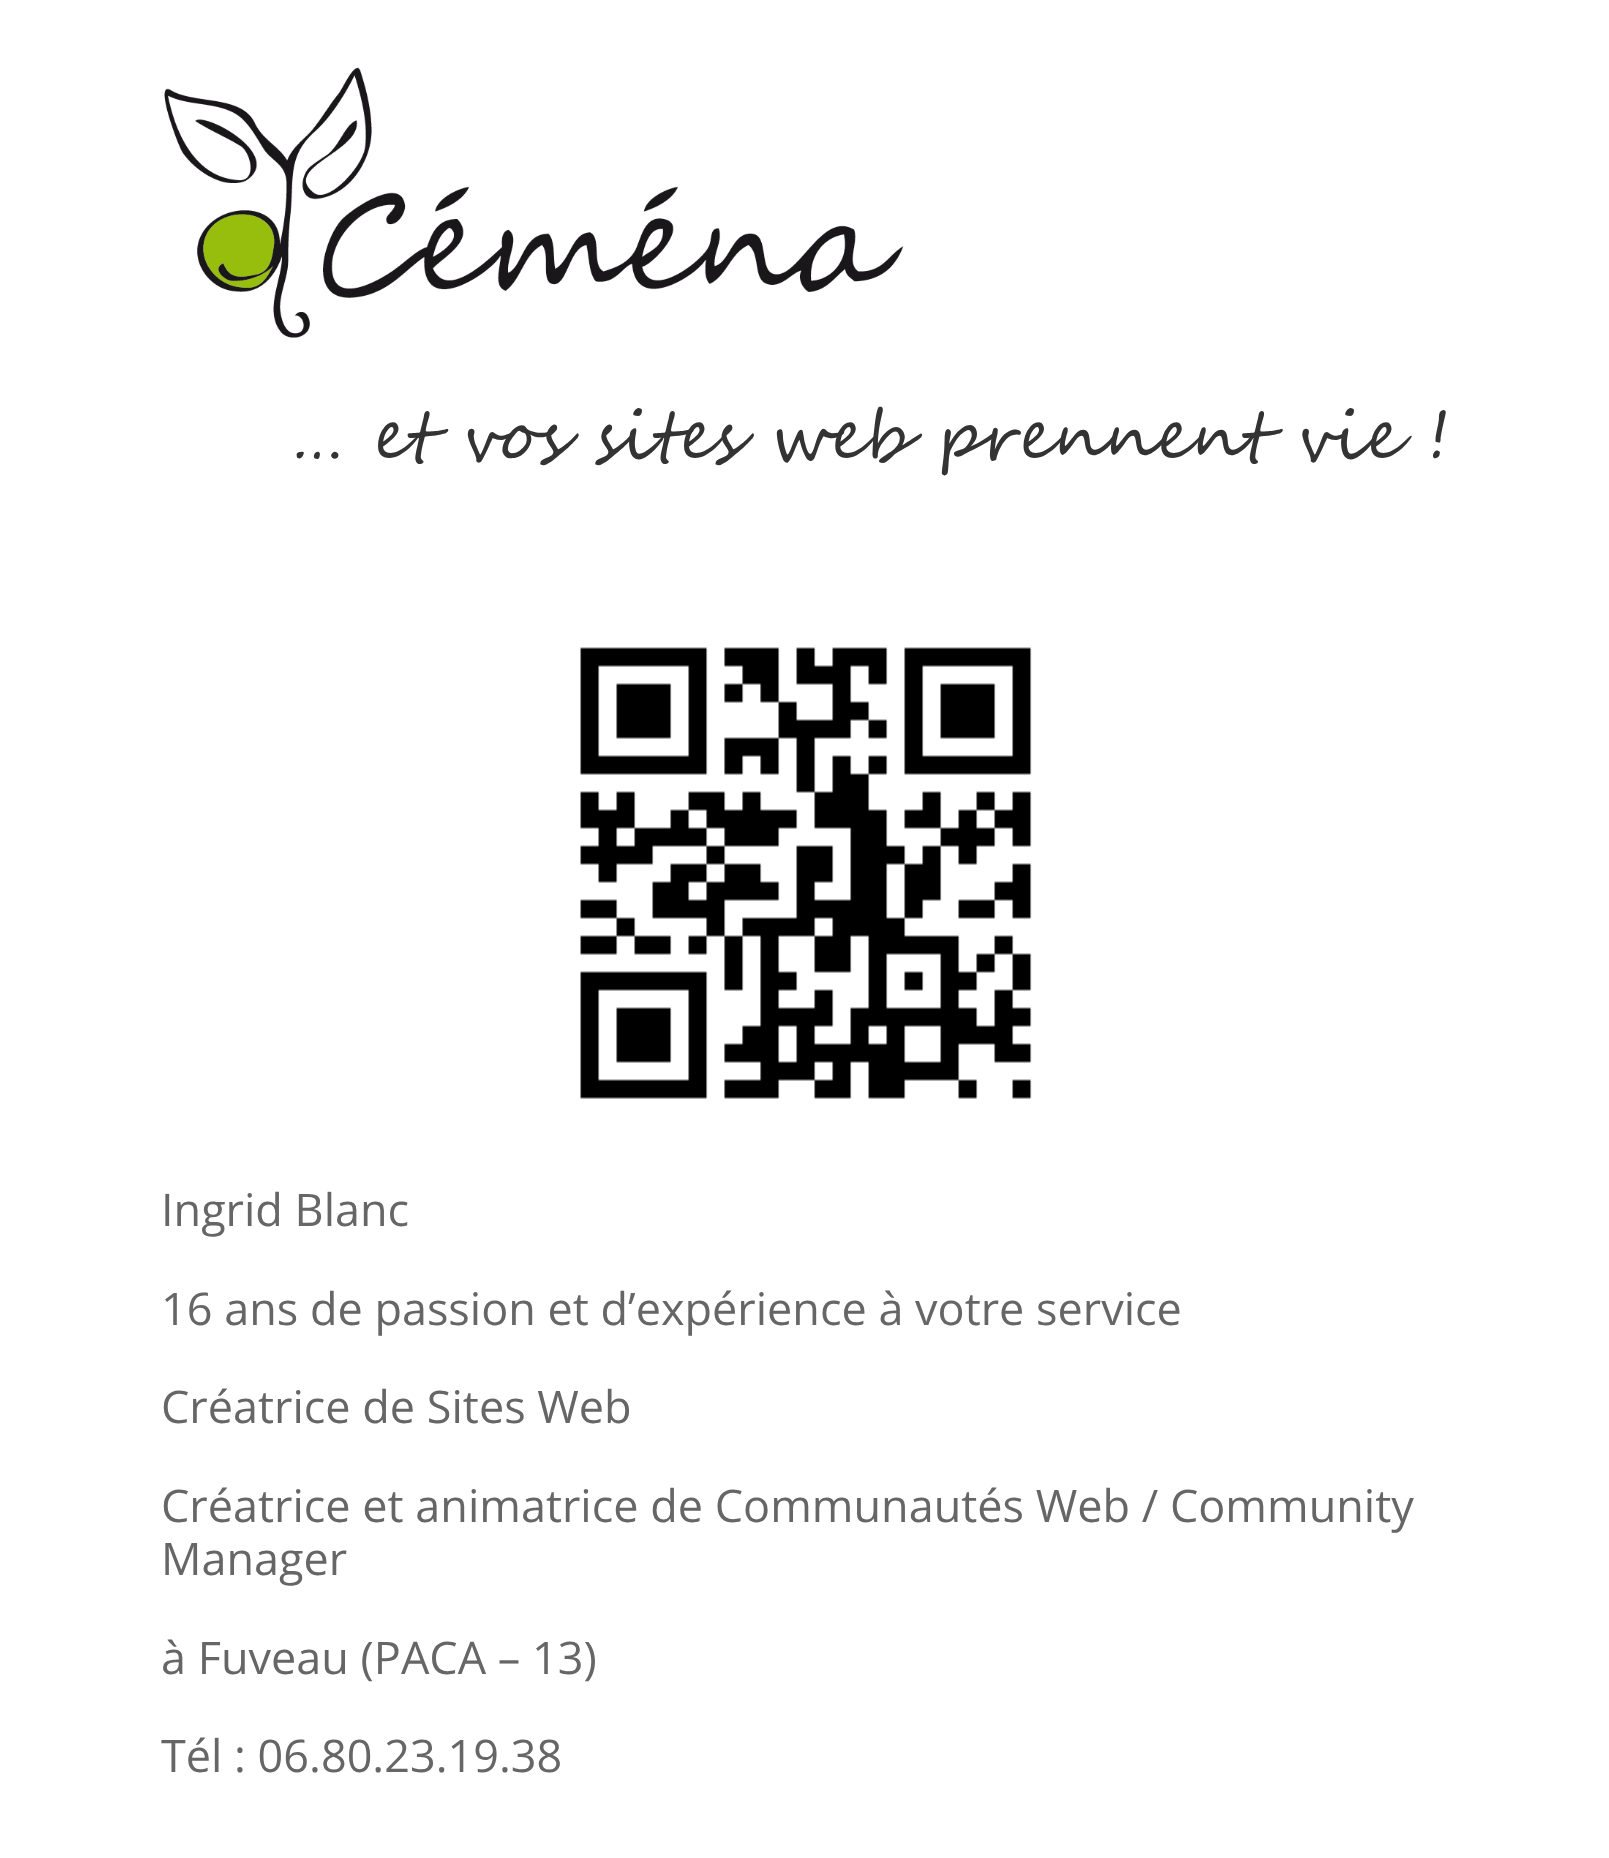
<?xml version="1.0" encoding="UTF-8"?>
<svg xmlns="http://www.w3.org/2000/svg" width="1609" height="1858">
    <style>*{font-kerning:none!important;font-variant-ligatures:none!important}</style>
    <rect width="100%" height="100%" fill="#FFFFFF"/>
    <image x="162" y="67" width="742" height="271" href="img_01.png"/>
    <text x="291" y="459" font-family="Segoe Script" font-size="67.5" fill="#333333">… et vos sites web prennent vie !</text>
    <image x="580" y="647" width="452" height="452" href="img_02.png"/>
    <text x="161" y="1226" font-family="Open Sans" font-size="45" fill="#666666">Ingrid Blanc</text>
    <text x="161" y="1325" font-family="Open Sans" font-size="45" fill="#666666">16 ans de passion et d’expérience à votre service</text>
    <text x="161" y="1423" font-family="Open Sans" font-size="45" fill="#666666">Créatrice de Sites Web</text>
    <text font-family="Open Sans" font-size="45" fill="#666666">
        <tspan x="161" y="1522">Créatrice et animatrice de Communautés Web / Community</tspan>
        <tspan x="161" y="1575">Manager</tspan>
    </text>
    <text x="161" y="1674" font-family="Open Sans" font-size="45" fill="#666666">à Fuveau (PACA – 13)</text>
    <text x="161" y="1772" font-family="Open Sans" font-size="45" fill="#666666">Tél : 06.80.23.19.38</text>
</svg>
